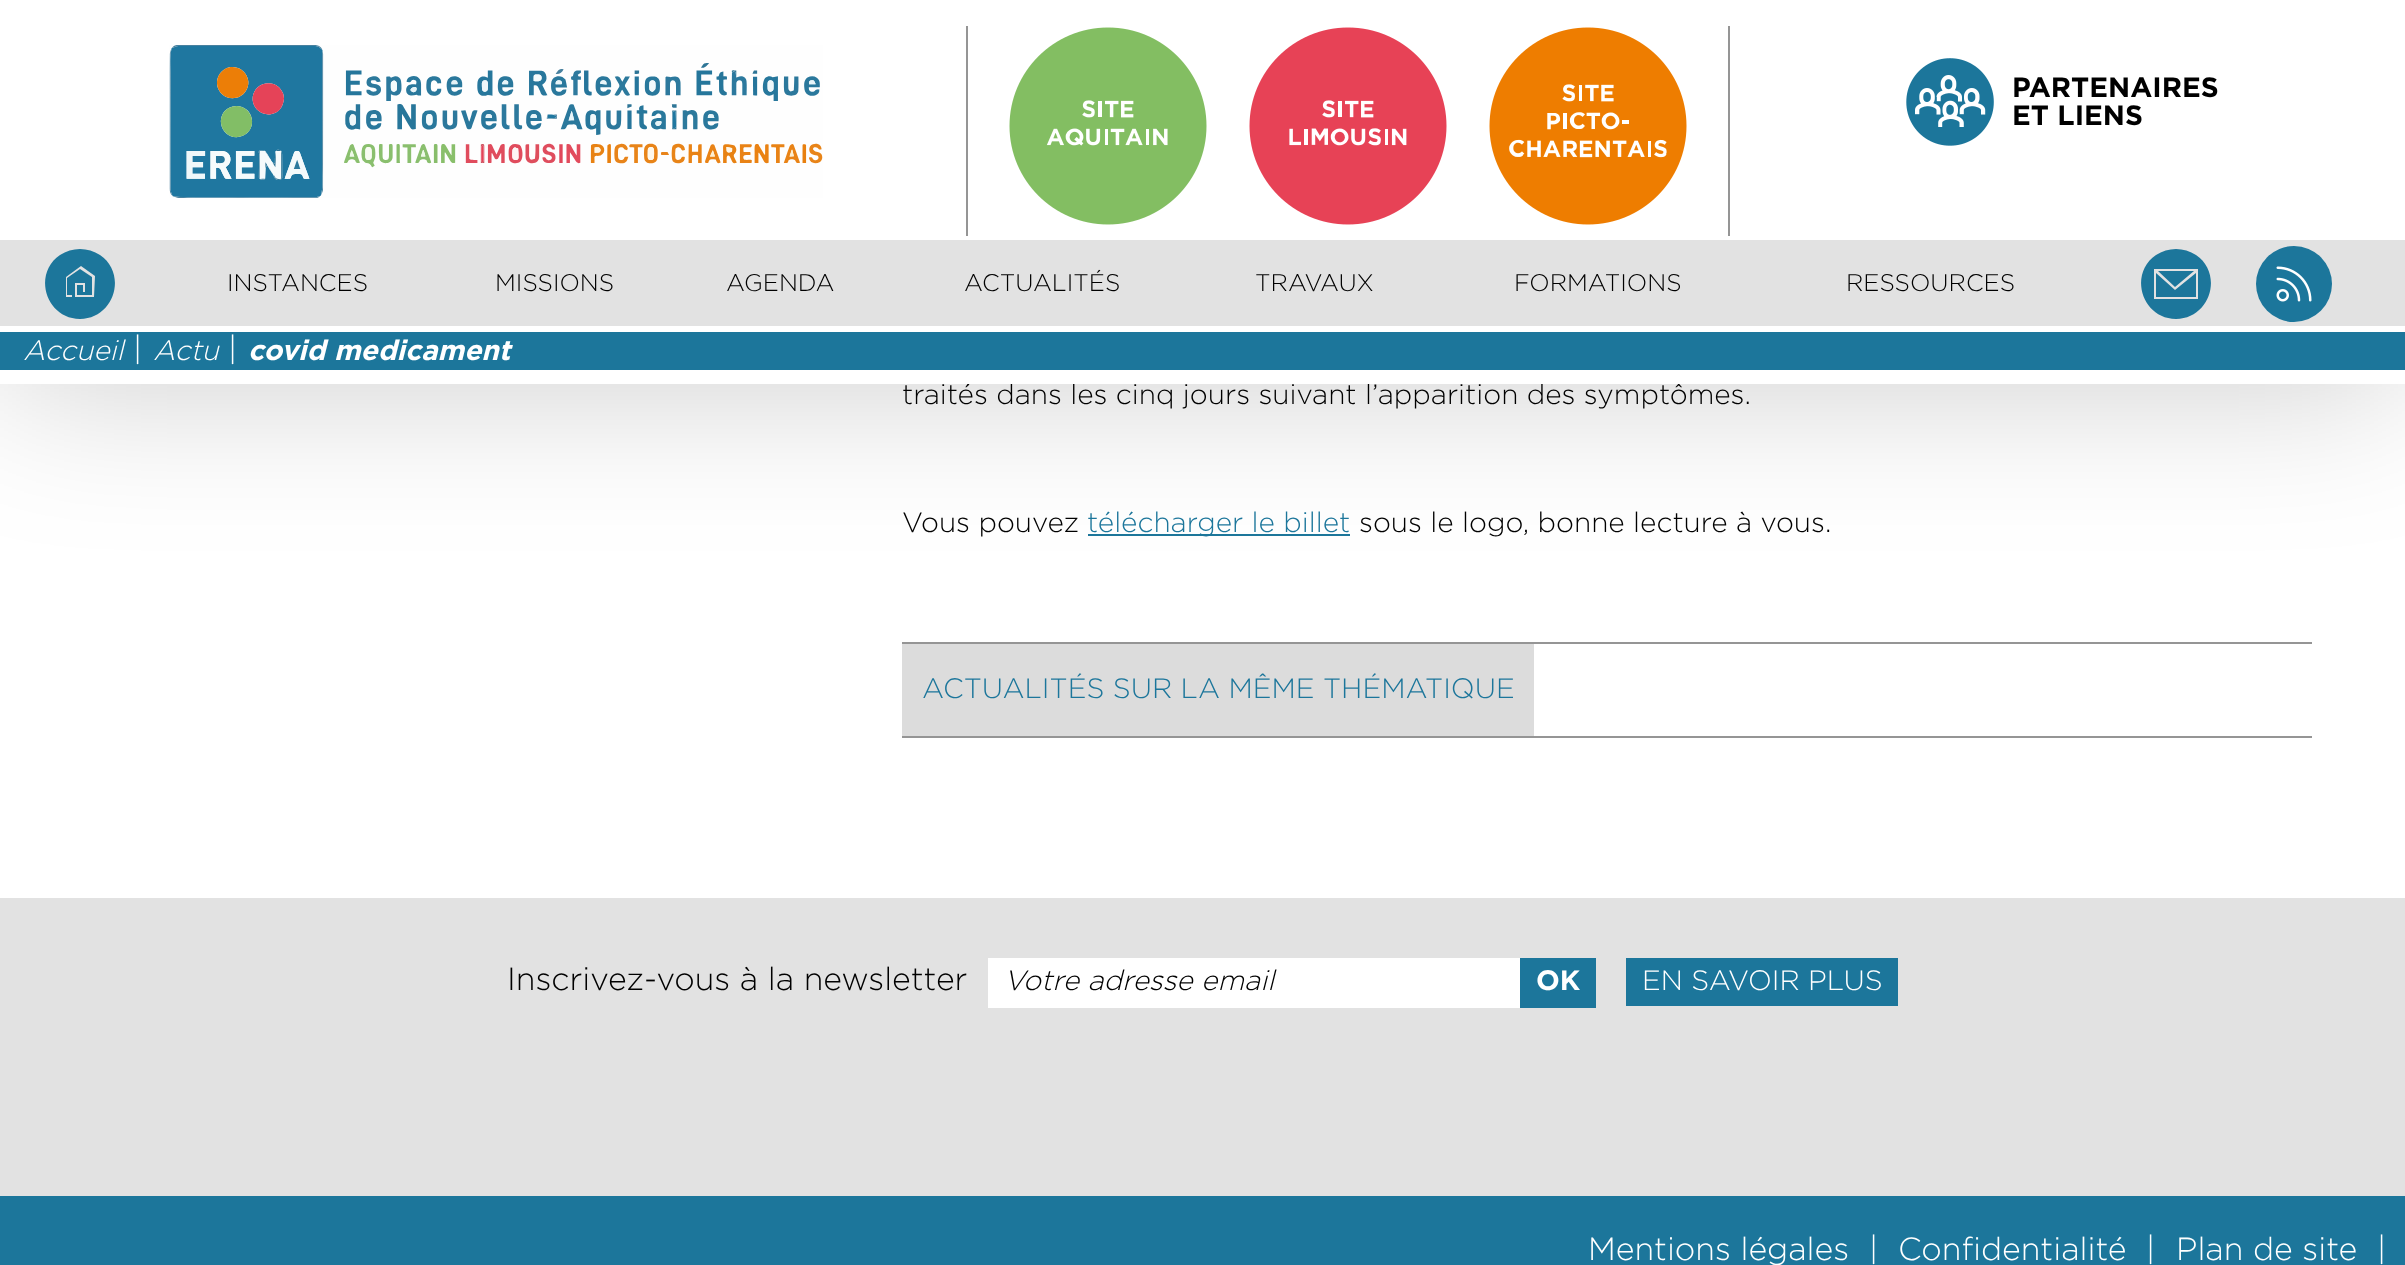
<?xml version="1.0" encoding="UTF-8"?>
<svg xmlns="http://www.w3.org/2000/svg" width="2405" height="1265">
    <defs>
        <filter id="blur1" x="-50%" y="-200%" width="200%" height="500%"><feGaussianBlur stdDeviation="80"/></filter>
    </defs>
    <rect width="100%" height="100%" fill="#FFFFFF"/>
    <rect x="1088" y="534" width="262" height="2" fill="#1C769B"/>
    <rect x="0" y="0" width="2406" height="384" fill="#000000" fill-opacity="0.2" filter="url(#blur1)"/>
    <text x="902" y="404" font-family="Gotham" font-size="28" font-weight="300" fill="#000000">traités dans les cinq jours suivant l’apparition des symptômes.</text>
    <rect x="0" y="0" width="2405" height="384" fill="#FFFFFF"/>
    <image x="169" y="45" width="654" height="153" href="img_01.png"/>
    <rect x="1728" y="26" width="2" height="210" fill="#959595"/>
    <rect x="966" y="26" width="2" height="210" fill="#959595"/>
    <image x="1009" y="27" width="198" height="198" href="img_02.png"/>
    <image x="1249" y="27" width="198" height="198" href="img_03.png"/>
    <image x="1489" y="27" width="198" height="198" href="img_04.png"/>
    <image x="1906" y="58" width="88" height="88" href="img_05.png"/>
    <text font-family="Gotham" font-size="28" font-weight="700" fill="#000000">
        <tspan x="2012" y="97">PARTENAIRES</tspan>
        <tspan x="2012" y="125">ET LIENS</tspan>
    </text>
    <rect x="0" y="240" width="2405" height="86" fill="#E2E2E2"/>
    <path d="M 80 249 C 73 249 66 251 60 255 C 32 274 46 319 80 319 C 114 319 128 274 100 255 C 94 251 87 249 80 249 Z M 94 297 H 75 V 283 H 85 V 292 H 83 V 285 H 77 V 295 H 92 V 277 L 80 269 L 67 278 V 295 H 72 V 297 H 66 V 277 L 81 266 L 95 276 Z" fill="#1C769B"/>
    <text x="227" y="291" font-family="Gotham" font-size="24" font-weight="300" fill="#000000">INSTANCES</text>
    <text x="495" y="291" font-family="Gotham" font-size="24" font-weight="300" fill="#000000">MISSIONS</text>
    <text x="726" y="291" font-family="Gotham" font-size="24" font-weight="300" fill="#000000">AGENDA</text>
    <text x="964" y="291" font-family="Gotham" font-size="24" font-weight="300" fill="#000000">ACTUALITÉS</text>
    <text x="1255" y="291" font-family="Gotham" font-size="24" font-weight="300" fill="#000000">TRAVAUX</text>
    <text x="1514" y="291" font-family="Gotham" font-size="24" font-weight="300" fill="#000000">FORMATIONS</text>
    <text x="1846" y="291" font-family="Gotham" font-size="24" font-weight="300" fill="#000000">RESSOURCES</text>
    <path d="M 2194 271 H 2158 L 2175 287 Z M 2196 273 L 2175 290 L 2156 273 V 297 H 2196 Z M 2176 249 C 2169 249 2162 251 2156 255 C 2128 274 2142 319 2176 319 C 2210 319 2224 274 2196 255 C 2190 251 2183 249 2176 249 Z M 2198 299 H 2154 V 269 H 2198 Z" fill="#1C769B"/>
    <circle cx="2294" cy="284" r="38" fill="#1C769B"/>
    <image x="2276" y="266" width="36" height="36" href="img_06.png"/>
    <rect x="0" y="332" width="2405" height="38" fill="#1C769B"/>
    <text x="23" y="360" font-family="Gotham" font-size="28" font-weight="300" font-style="italic" fill="#FFFFFF">Accueil</text>
    <text x="133" y="360" font-family="Gotham" font-size="32" font-weight="300" fill="#FFFFFF">|</text>
    <text x="153" y="360" font-family="Gotham" font-size="28" font-weight="300" font-style="italic" fill="#FFFFFF">Actu</text>
    <text x="228" y="360" font-family="Gotham" font-size="32" font-weight="300" fill="#FFFFFF">|</text>
    <text x="248" y="360" font-family="Gotham" font-size="28" font-weight="700" font-style="italic" fill="#FFFFFF">covid medicament</text>
    <text x="902" y="532" font-family="Gotham" font-size="28" font-weight="300" fill="#000000">Vous pouvez</text>
    <text x="1087" y="532" font-family="Gotham" font-size="28" font-weight="300" fill="#1C769B">télécharger le billet</text>
    <text x="1359" y="532" font-family="Gotham" font-size="28" font-weight="300" fill="#000000">sous le logo, bonne lecture à vous.</text>
    <rect x="902" y="642" width="1410" height="2" fill="#959595"/>
    <rect x="902" y="736" width="1410" height="2" fill="#959595"/>
    <rect x="902" y="644" width="632" height="92" fill="#DCDCDC"/>
    <text x="922" y="698" font-family="Gotham" font-size="28" font-weight="300" fill="#1C769B">ACTUALITÉS SUR LA MÊME THÉMATIQUE</text>
    <rect x="0" y="898" width="2405" height="298" fill="#E2E2E2"/>
    <text x="507" y="990" font-family="Gotham" font-size="32" font-weight="300" fill="#000000">Inscrivez-vous à la newsletter</text>
    <rect x="988" y="958" width="532" height="50" fill="#FFFFFF"/>
    <text x="1004" y="990" font-family="Gotham" font-size="28" font-weight="300" font-style="italic" fill="#000000">Votre adresse email</text>
    <rect x="1520" y="958" width="76" height="50" fill="#1C769B"/>
    <text x="1536" y="990" font-family="Gotham" font-size="28" font-weight="700" fill="#FFFFFF">OK</text>
    <rect x="1626" y="958" width="272" height="48" fill="#1C769B"/>
    <text x="1642" y="990" font-family="Gotham" font-size="28" font-weight="300" fill="#FFFFFF">EN SAVOIR PLUS</text>
    <rect x="0" y="1196" width="2405" height="69" fill="#1C769B"/>
    <text x="1588" y="1260" font-family="Gotham" font-size="32" font-weight="300" fill="#FFFFFF">Mentions légales</text>
    <text x="1869" y="1260" font-family="Gotham" font-size="32" font-weight="300" fill="#FFFFFF">|</text>
    <text x="1898" y="1260" font-family="Gotham" font-size="32" font-weight="300" fill="#FFFFFF">Confidentialité</text>
    <text x="2146" y="1260" font-family="Gotham" font-size="32" font-weight="300" fill="#FFFFFF">|</text>
    <text x="2176" y="1260" font-family="Gotham" font-size="32" font-weight="300" fill="#FFFFFF">Plan de site</text>
    <text x="2377" y="1260" font-family="Gotham" font-size="32" font-weight="300" fill="#FFFFFF">|</text>
</svg>
